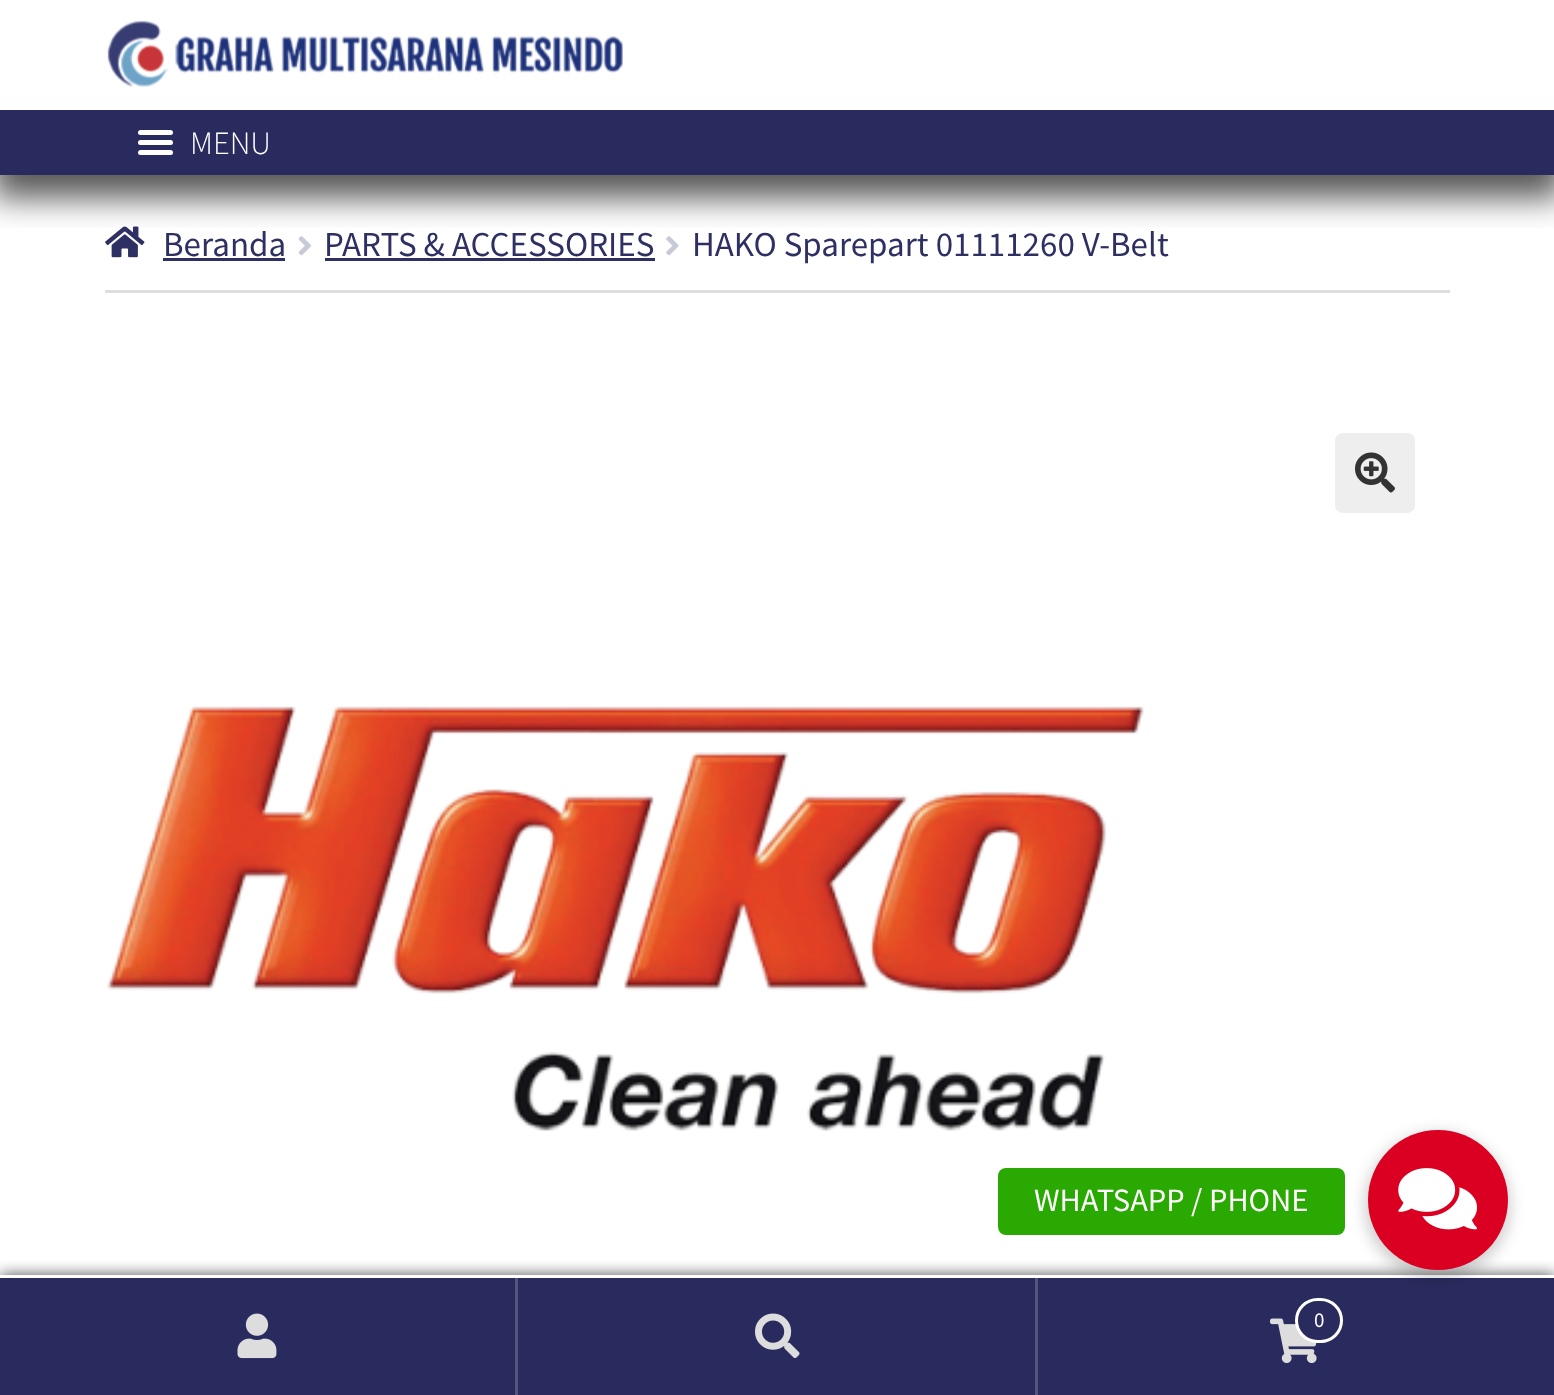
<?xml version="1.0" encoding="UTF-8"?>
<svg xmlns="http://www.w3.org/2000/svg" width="1554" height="1395">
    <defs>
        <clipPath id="clip1"><rect x="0" y="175" width="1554" height="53"/></clipPath>
        <filter id="blur1" x="-50%" y="-200%" width="200%" height="500%"><feGaussianBlur stdDeviation="16"/></filter>
        <clipPath id="clip2"><rect x="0" y="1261" width="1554" height="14"/></clipPath>
        <filter id="blur2" x="-50%" y="-200%" width="200%" height="500%"><feGaussianBlur stdDeviation="7.5"/></filter>
    </defs>
    <rect width="100%" height="100%" fill="#FFFFFF"/>
    <image x="105" y="226" width="40" height="32" href="img_02.png"/>
    <image x="298" y="236" width="13" height="20" href="img_03.png"/>
    <image x="666" y="236" width="13" height="20" href="img_04.png"/>
    <g clip-path="url(#clip1)">
        <rect x="-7" y="8" width="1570" height="190" fill="#000000" fill-opacity="0.66" filter="url(#blur1)"/>
    </g>
    <image x="107" y="20" width="516" height="67" href="img_01.png"/>
    <rect x="0" y="110" width="1554" height="65" fill="#292B5E"/>
    <rect x="138" y="130" width="35" height="5" rx="2.5" fill="#FFFFFF"/>
    <rect x="138" y="140" width="35" height="5" rx="2.5" fill="#FFFFFF"/>
    <text x="190" y="154" font-family="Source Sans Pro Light" font-size="32.5" font-weight="300" fill="#FFFFFF">MENU</text>
    <rect x="138" y="150" width="35" height="5" rx="2.5" fill="#FFFFFF"/>
    <rect x="105" y="290" width="1345" height="3" fill="#DEDEDE"/>
    <text x="163" y="256" font-family="Source Sans Pro" font-size="35" fill="#2E3063">Beranda</text>
    <rect x="163" y="258" width="122" height="3" fill="#2E3063"/>
    <text x="324" y="256" font-family="Source Sans Pro" font-size="35" fill="#2E3063">PARTS &amp; ACCESSORIES</text>
    <rect x="325" y="258" width="330" height="3" fill="#2E3063"/>
    <text x="692" y="256" font-family="Source Sans Pro" font-size="35" fill="#2E3063">HAKO Sparepart 01111260 V-Belt</text>
    <rect x="1335" y="433" width="80" height="80" rx="8" fill="#EEEEEE"/>
    <image x="1355" y="452" width="40" height="41" href="img_05.png"/>
    <image x="107" y="706" width="1038" height="425" href="img_06.png"/>
    <g clip-path="url(#clip2)">
        <rect x="0" y="1275" width="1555" height="120" fill="#000000" fill-opacity="0.7" filter="url(#blur2)"/>
    </g>
    <rect x="0" y="1278" width="515" height="117" fill="#292B5E"/>
    <rect x="515" y="1278" width="3" height="117" fill="#54557E"/>
    <image x="237" y="1313" width="40" height="46" href="img_07.png"/>
    <rect x="518" y="1278" width="517" height="117" fill="#292B5E"/>
    <rect x="1035" y="1278" width="3" height="117" fill="#54557E"/>
    <image x="755" y="1313" width="45" height="45" href="img_08.png"/>
    <rect x="1038" y="1278" width="516" height="117" fill="#292B5E"/>
    <image x="1270" y="1318" width="47" height="46" href="img_09.png"/>
    <rect x="1296.5" y="1299.5" width="45" height="42" rx="21" fill="#292B5E" stroke="#FFFFFF" stroke-width="3"/>
    <text x="1314" y="1327" font-family="Source Sans Pro" font-size="21" fill="#FFFFFF">0</text>
    <rect x="1365" y="1133" width="145" height="145" rx="72.5" fill="#000000" fill-opacity="0.2" filter="url(#blur2)"/>
    <circle cx="1438" cy="1200" r="70" fill="#DB0021"/>
    <rect x="998" y="1168" width="347" height="67" rx="8" fill="#29A901"/>
    <text x="1034" y="1211" font-family="Source Sans Pro" font-size="32.5" fill="#FFFFFF">WHATSAPP / PHONE</text>
    <image x="1398" y="1168" width="79" height="62" href="img_10.png"/>
</svg>
